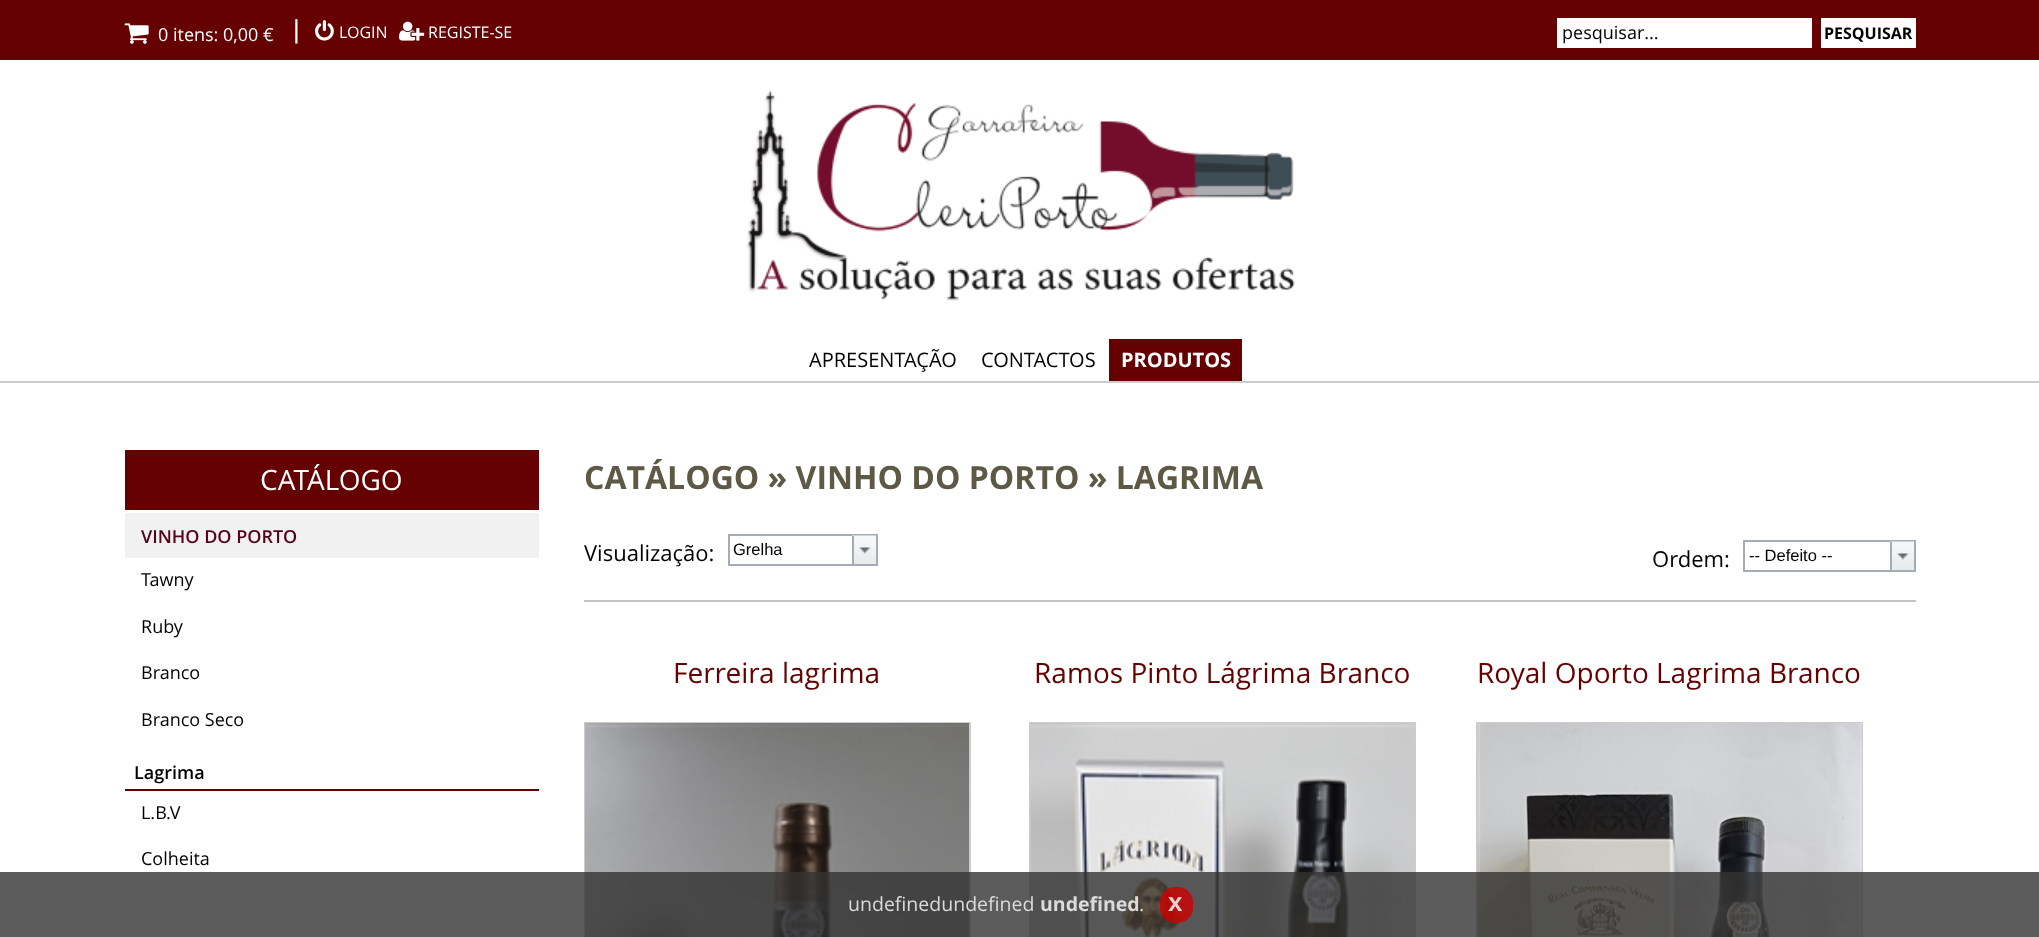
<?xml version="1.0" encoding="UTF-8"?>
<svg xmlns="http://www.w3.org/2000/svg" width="2039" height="937">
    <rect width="100%" height="100%" fill="#FFFFFF"/>
    <rect x="0" y="0" width="2039" height="60" fill="#650201"/>
    <image x="124" y="23" width="25" height="21" href="img_01.png"/>
    <text x="158" y="41" font-family="Open Sans" font-size="18" fill="#FFFFFF">0 itens: 0,00 €</text>
    <text x="293" y="38" font-family="Liberation Sans" font-size="26" fill="#FFFFFF">|</text>
    <image x="315" y="20" width="19" height="21" href="img_02.png"/>
    <text x="339" y="38" font-family="Open Sans" font-size="16" fill="#FFFFFF">LOGIN</text>
    <image x="399" y="21" width="26" height="20" href="img_03.png"/>
    <text x="428" y="38" font-family="Open Sans" font-size="16" fill="#FFFFFF">REGISTE-SE</text>
    <rect x="1557" y="18" width="255" height="30" fill="#FFFFFF"/>
    <text x="1562" y="39" font-family="Open Sans" font-size="18" fill="#000000">pesquisar...</text>
    <rect x="1821" y="18" width="95" height="30" fill="#FFFFFF"/>
    <text x="1824" y="39" font-family="Open Sans" font-size="16" font-weight="700" fill="#000000">PESQUISAR</text>
    <image x="746" y="90" width="549" height="211" href="img_04.png"/>
    <text x="809" y="367" font-family="Open Sans" font-size="20" fill="#000000">APRESENTAÇÃO</text>
    <text x="981" y="367" font-family="Open Sans" font-size="20" fill="#000000">CONTACTOS</text>
    <rect x="1109" y="339" width="133" height="42" fill="#650201"/>
    <text x="1121" y="367" font-family="Open Sans" font-size="20" font-weight="700" fill="#FFFFFF">PRODUTOS</text>
    <rect x="0" y="381" width="2039" height="2" fill="#CCCCCC"/>
    <rect x="125" y="450" width="414" height="60" fill="#650201"/>
    <text x="260" y="490" font-family="Open Sans" font-size="28" fill="#FFFFFF">CATÁLOGO</text>
    <rect x="125" y="513" width="414" height="45" fill="#F1F1F1"/>
    <text x="141" y="543" font-family="Open Sans" font-size="18" font-weight="600" fill="#55031A">VINHO DO PORTO</text>
    <text x="141" y="586" font-family="Open Sans" font-size="18" fill="#000000">Tawny</text>
    <text x="141" y="633" font-family="Open Sans" font-size="18" fill="#000000">Ruby</text>
    <text x="141" y="679" font-family="Open Sans" font-size="18" fill="#000000">Branco</text>
    <text x="141" y="726" font-family="Open Sans" font-size="18" fill="#000000">Branco Seco</text>
    <rect x="125" y="789" width="414" height="2" fill="#650201"/>
    <text x="134" y="779" font-family="Open Sans" font-size="18" font-weight="600" fill="#000000">Lagrima</text>
    <text x="141" y="819" font-family="Open Sans" font-size="18" fill="#000000">L.B.V</text>
    <text x="141" y="865" font-family="Open Sans" font-size="18" fill="#000000">Colheita</text>
    <text x="584" y="489" font-family="Open Sans" font-size="32" font-weight="700" fill="#5D5945">CATÁLOGO » VINHO DO PORTO » LAGRIMA</text>
    <text x="584" y="561" font-family="Open Sans" font-size="22" fill="#000000">Visualização:</text>
    <rect x="729" y="535" width="148" height="30" fill="none" stroke="#A5ACB5" stroke-width="2"/>
    <text x="733" y="555" font-family="Liberation Sans" font-size="16.5" fill="#000000">Grelha</text>
    <image x="852" y="535" width="24" height="29" href="img_05.png"/>
    <rect x="852" y="536" width="2" height="28" fill="#A5ACB5"/>
    <image x="859" y="547" width="12" height="7" href="img_06.png"/>
    <text x="1652" y="567" font-family="Open Sans" font-size="22" fill="#000000">Ordem:</text>
    <rect x="1744" y="541" width="171" height="30" fill="none" stroke="#A5ACB5" stroke-width="2"/>
    <text x="1749" y="561" font-family="Liberation Sans" font-size="16.5" fill="#000000">-- Defeito --</text>
    <image x="1890" y="541" width="24" height="29" href="img_05.png"/>
    <rect x="1890" y="542" width="2" height="28" fill="#A5ACB5"/>
    <image x="1897" y="553" width="12" height="7" href="img_07.png"/>
    <rect x="584" y="600" width="1332" height="2" fill="#C4C4C4"/>
    <text x="673" y="683" font-family="Open Sans" font-size="28" fill="#650201">Ferreira lagrima</text>
    <rect x="585" y="723" width="385" height="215" fill="none" stroke="#CCCCCC" stroke-width="2"/>
    <image x="585" y="723" width="384" height="214" href="img_08.png"/>
    <text x="1034" y="683" font-family="Open Sans" font-size="28" fill="#650201">Ramos Pinto Lágrima Branco</text>
    <rect x="1030" y="723" width="385" height="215" fill="none" stroke="#CCCCCC" stroke-width="2"/>
    <image x="1030" y="723" width="384" height="214" href="img_09.png"/>
    <text x="1477" y="683" font-family="Open Sans" font-size="28" fill="#650201">Royal Oporto Lagrima Branco</text>
    <rect x="1477" y="723" width="385" height="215" fill="none" stroke="#CCCCCC" stroke-width="2"/>
    <image x="1477" y="723" width="385" height="214" href="img_10.png"/>
    <rect x="0" y="872" width="2039" height="65" fill="#333333" fill-opacity="0.8"/>
    <text x="848" y="911" font-family="Open Sans" font-size="19.5" fill="#DBDBDB">undefinedundefined</text>
    <text x="1040" y="911" font-family="Open Sans" font-size="19.5" font-weight="700" fill="#DBDBDB">undefined</text>
    <text x="1139" y="911" font-family="Open Sans" font-size="19.5" fill="#DBDBDB">.</text>
    <rect x="1160" y="887" width="33" height="36" rx="15" fill="#CE0000" fill-opacity="0.8"/>
    <text x="1168" y="911" font-family="Liberation Sans" font-size="26" font-weight="700" fill="#F0CFCF">x</text>
</svg>
